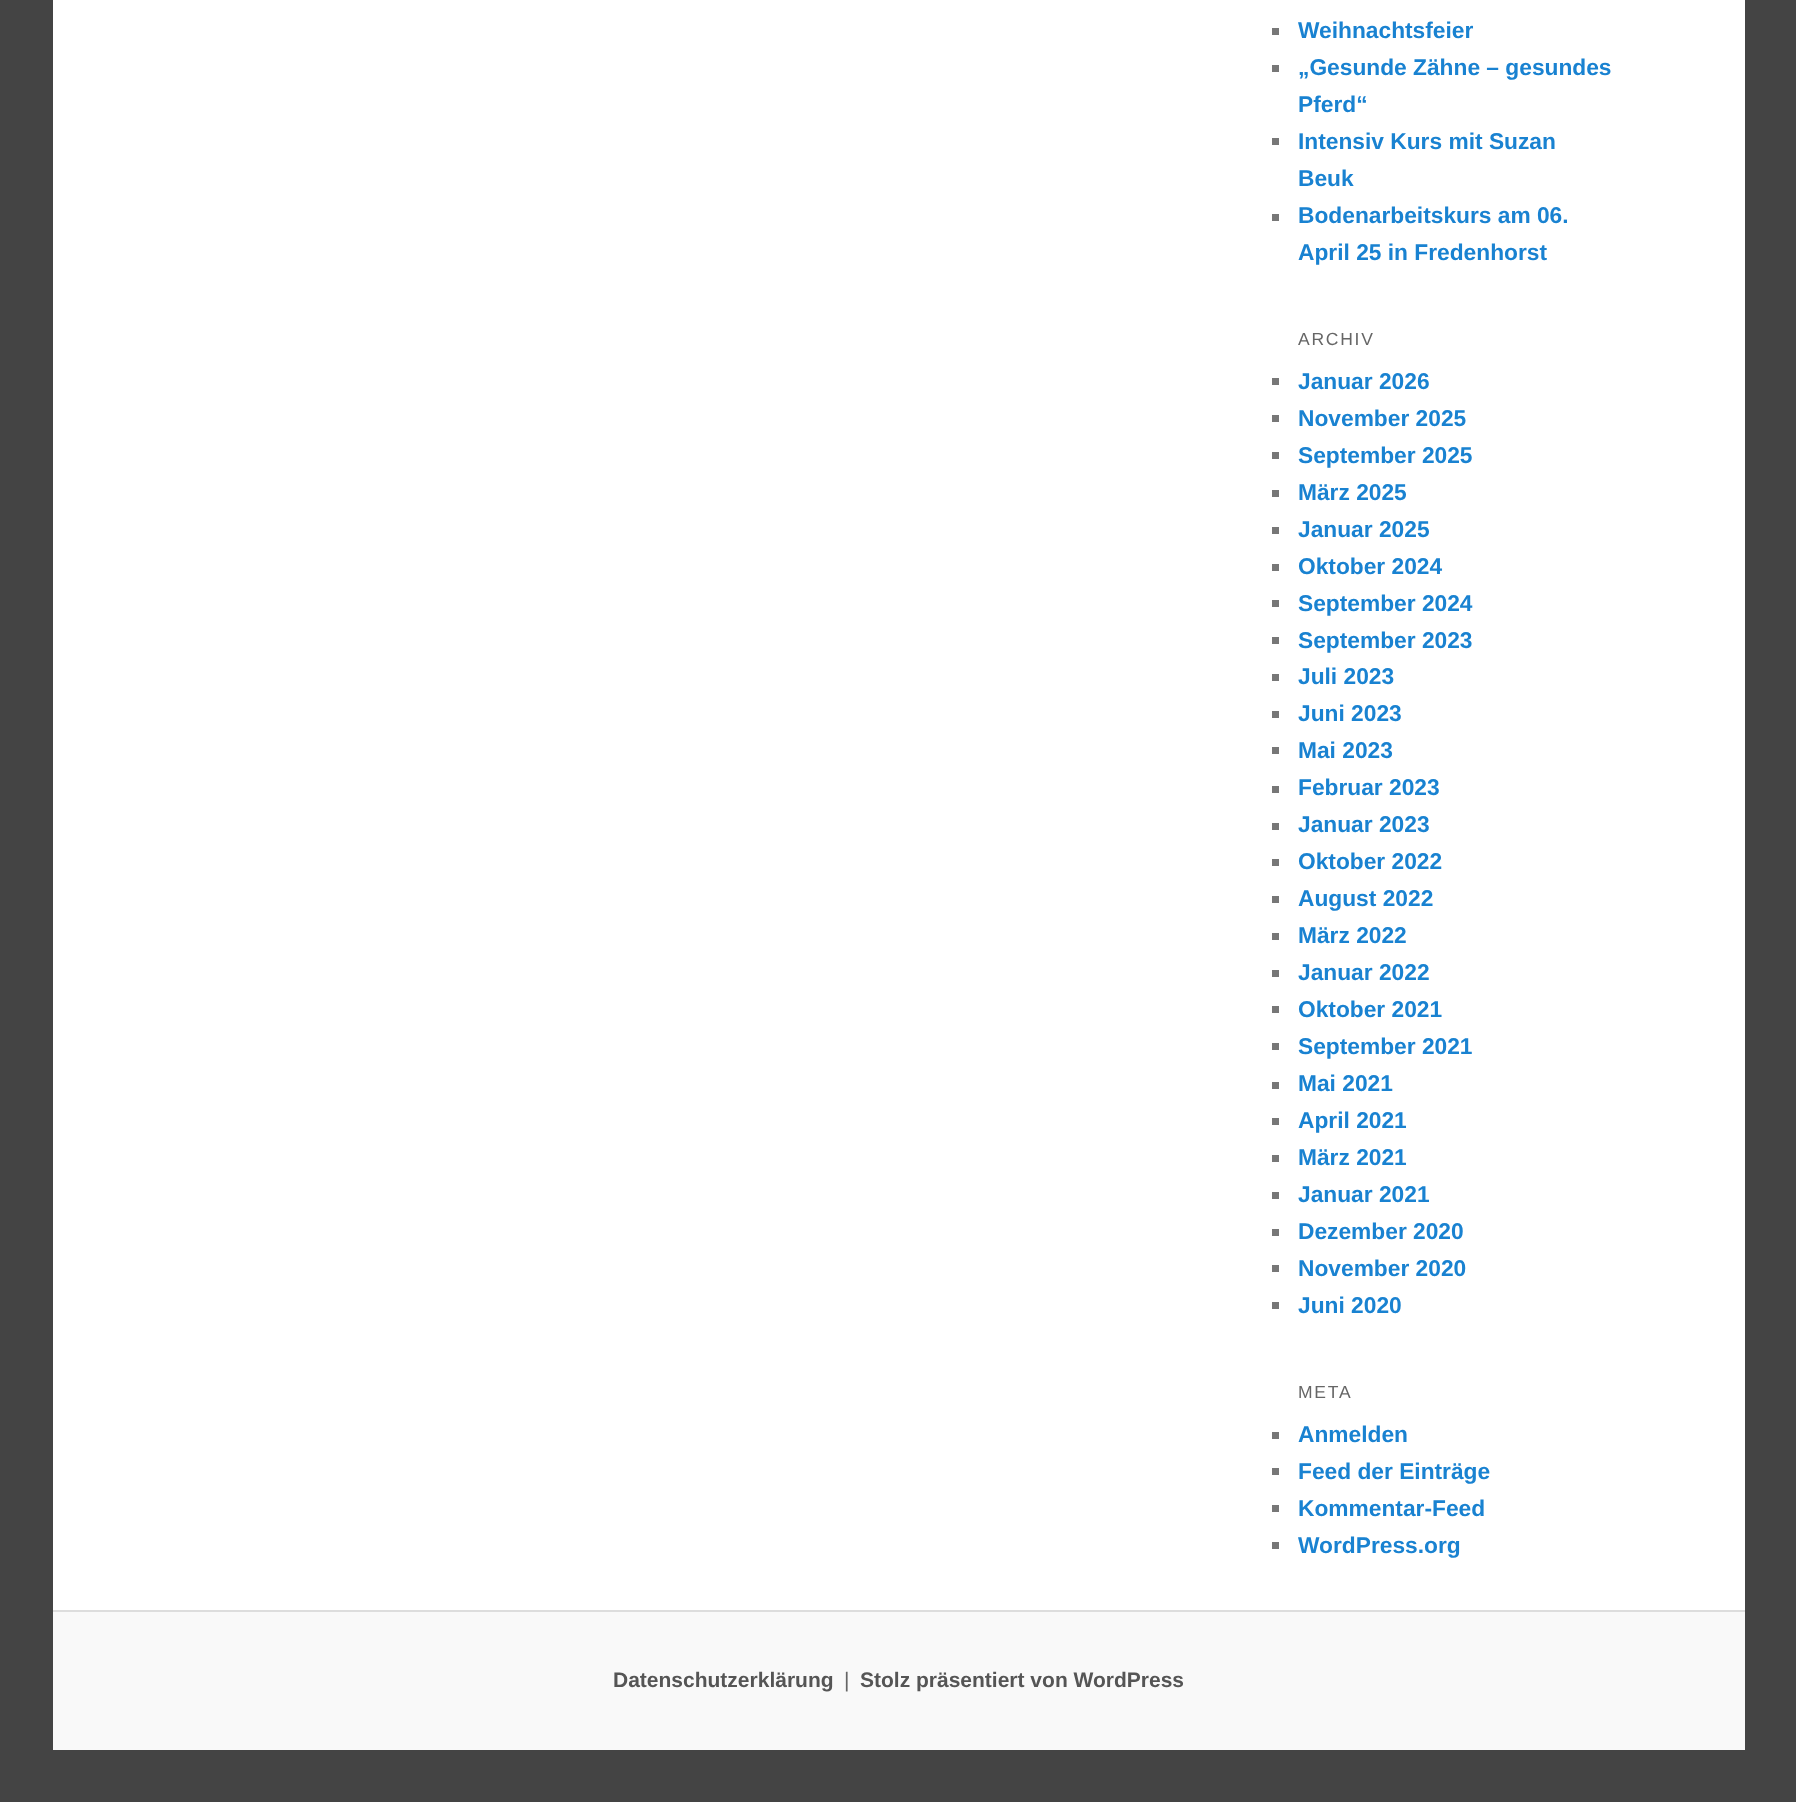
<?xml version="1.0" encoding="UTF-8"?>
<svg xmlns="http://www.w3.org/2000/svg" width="1796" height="1802">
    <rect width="100%" height="100%" fill="#444444"/>
    <rect x="53" y="0" width="1692" height="1610" fill="#FFFFFF"/>
    <rect x="1272" y="28" width="7" height="7" fill="#777777"/>
    <text x="1298" y="38" font-family="Liberation Sans" font-size="22.75" font-weight="700" fill="#1982D1">Weihnachtsfeier</text>
    <rect x="1272" y="65" width="7" height="7" fill="#777777"/>
    <text font-family="Liberation Sans" font-size="22.75" font-weight="700" fill="#1982D1">
        <tspan x="1298" y="75">„Gesunde Zähne – gesundes</tspan>
        <tspan x="1298" y="112">Pferd“</tspan>
    </text>
    <rect x="1272" y="138" width="7" height="7" fill="#777777"/>
    <text font-family="Liberation Sans" font-size="22.75" font-weight="700" fill="#1982D1">
        <tspan x="1298" y="149">Intensiv Kurs mit Suzan</tspan>
        <tspan x="1298" y="186">Beuk</tspan>
    </text>
    <rect x="1272" y="214" width="7" height="7" fill="#777777"/>
    <text font-family="Liberation Sans" font-size="22.75" font-weight="700" fill="#1982D1">
        <tspan x="1298" y="223">Bodenarbeitskurs am 06.</tspan>
        <tspan x="1298" y="260">April 25 in Fredenhorst</tspan>
    </text>
    <text x="1298" y="345" font-family="Liberation Sans" font-size="17.5" letter-spacing="1.75" fill="#666666">ARCHIV</text>
    <rect x="1272" y="378" width="7" height="7" fill="#777777"/>
    <text x="1298" y="389" font-family="Liberation Sans" font-size="22.75" font-weight="700" fill="#1982D1">Januar 2026</text>
    <rect x="1272" y="415" width="7" height="7" fill="#777777"/>
    <text x="1298" y="426" font-family="Liberation Sans" font-size="22.75" font-weight="700" fill="#1982D1">November 2025</text>
    <rect x="1272" y="452" width="7" height="7" fill="#777777"/>
    <text x="1298" y="463" font-family="Liberation Sans" font-size="22.75" font-weight="700" fill="#1982D1">September 2025</text>
    <rect x="1272" y="490" width="7" height="7" fill="#777777"/>
    <text x="1298" y="500" font-family="Liberation Sans" font-size="22.75" font-weight="700" fill="#1982D1">März 2025</text>
    <rect x="1272" y="527" width="7" height="7" fill="#777777"/>
    <text x="1298" y="537" font-family="Liberation Sans" font-size="22.75" font-weight="700" fill="#1982D1">Januar 2025</text>
    <rect x="1272" y="564" width="7" height="7" fill="#777777"/>
    <text x="1298" y="574" font-family="Liberation Sans" font-size="22.75" font-weight="700" fill="#1982D1">Oktober 2024</text>
    <rect x="1272" y="600" width="7" height="7" fill="#777777"/>
    <text x="1298" y="611" font-family="Liberation Sans" font-size="22.75" font-weight="700" fill="#1982D1">September 2024</text>
    <rect x="1272" y="637" width="7" height="7" fill="#777777"/>
    <text x="1298" y="648" font-family="Liberation Sans" font-size="22.75" font-weight="700" fill="#1982D1">September 2023</text>
    <rect x="1272" y="674" width="7" height="7" fill="#777777"/>
    <text x="1298" y="684" font-family="Liberation Sans" font-size="22.75" font-weight="700" fill="#1982D1">Juli 2023</text>
    <rect x="1272" y="711" width="7" height="7" fill="#777777"/>
    <text x="1298" y="721" font-family="Liberation Sans" font-size="22.75" font-weight="700" fill="#1982D1">Juni 2023</text>
    <rect x="1272" y="747" width="7" height="7" fill="#777777"/>
    <text x="1298" y="758" font-family="Liberation Sans" font-size="22.75" font-weight="700" fill="#1982D1">Mai 2023</text>
    <rect x="1272" y="786" width="7" height="7" fill="#777777"/>
    <text x="1298" y="795" font-family="Liberation Sans" font-size="22.75" font-weight="700" fill="#1982D1">Februar 2023</text>
    <rect x="1272" y="823" width="7" height="7" fill="#777777"/>
    <text x="1298" y="832" font-family="Liberation Sans" font-size="22.75" font-weight="700" fill="#1982D1">Januar 2023</text>
    <rect x="1272" y="859" width="7" height="7" fill="#777777"/>
    <text x="1298" y="869" font-family="Liberation Sans" font-size="22.75" font-weight="700" fill="#1982D1">Oktober 2022</text>
    <rect x="1272" y="896" width="7" height="7" fill="#777777"/>
    <text x="1298" y="906" font-family="Liberation Sans" font-size="22.75" font-weight="700" fill="#1982D1">August 2022</text>
    <rect x="1272" y="933" width="7" height="7" fill="#777777"/>
    <text x="1298" y="943" font-family="Liberation Sans" font-size="22.75" font-weight="700" fill="#1982D1">März 2022</text>
    <rect x="1272" y="970" width="7" height="7" fill="#777777"/>
    <text x="1298" y="980" font-family="Liberation Sans" font-size="22.75" font-weight="700" fill="#1982D1">Januar 2022</text>
    <rect x="1272" y="1006" width="7" height="7" fill="#777777"/>
    <text x="1298" y="1017" font-family="Liberation Sans" font-size="22.75" font-weight="700" fill="#1982D1">Oktober 2021</text>
    <rect x="1272" y="1043" width="7" height="7" fill="#777777"/>
    <text x="1298" y="1054" font-family="Liberation Sans" font-size="22.75" font-weight="700" fill="#1982D1">September 2021</text>
    <rect x="1272" y="1082" width="7" height="7" fill="#777777"/>
    <text x="1298" y="1091" font-family="Liberation Sans" font-size="22.75" font-weight="700" fill="#1982D1">Mai 2021</text>
    <rect x="1272" y="1118" width="7" height="7" fill="#777777"/>
    <text x="1298" y="1128" font-family="Liberation Sans" font-size="22.75" font-weight="700" fill="#1982D1">April 2021</text>
    <rect x="1272" y="1155" width="7" height="7" fill="#777777"/>
    <text x="1298" y="1165" font-family="Liberation Sans" font-size="22.75" font-weight="700" fill="#1982D1">März 2021</text>
    <rect x="1272" y="1192" width="7" height="7" fill="#777777"/>
    <text x="1298" y="1202" font-family="Liberation Sans" font-size="22.75" font-weight="700" fill="#1982D1">Januar 2021</text>
    <rect x="1272" y="1229" width="7" height="7" fill="#777777"/>
    <text x="1298" y="1239" font-family="Liberation Sans" font-size="22.75" font-weight="700" fill="#1982D1">Dezember 2020</text>
    <rect x="1272" y="1265" width="7" height="7" fill="#777777"/>
    <text x="1298" y="1276" font-family="Liberation Sans" font-size="22.75" font-weight="700" fill="#1982D1">November 2020</text>
    <rect x="1272" y="1302" width="7" height="7" fill="#777777"/>
    <text x="1298" y="1313" font-family="Liberation Sans" font-size="22.75" font-weight="700" fill="#1982D1">Juni 2020</text>
    <text x="1298" y="1398" font-family="Liberation Sans" font-size="17.5" letter-spacing="1.75" fill="#666666">META</text>
    <rect x="1272" y="1432" width="7" height="7" fill="#777777"/>
    <text x="1298" y="1442" font-family="Liberation Sans" font-size="22.75" font-weight="700" fill="#1982D1">Anmelden</text>
    <rect x="1272" y="1468" width="7" height="7" fill="#777777"/>
    <text x="1298" y="1479" font-family="Liberation Sans" font-size="22.75" font-weight="700" fill="#1982D1">Feed der Einträge</text>
    <rect x="1272" y="1505" width="7" height="7" fill="#777777"/>
    <text x="1298" y="1516" font-family="Liberation Sans" font-size="22.75" font-weight="700" fill="#1982D1">Kommentar-Feed</text>
    <rect x="1272" y="1542" width="7" height="7" fill="#777777"/>
    <text x="1298" y="1553" font-family="Liberation Sans" font-size="22.75" font-weight="700" fill="#1982D1">WordPress.org</text>
    <rect x="53" y="1612" width="1692" height="138" fill="#F9F9F9"/>
    <rect x="53" y="1610" width="1692" height="2" fill="#DDDDDD"/>
    <text x="613" y="1687" font-family="Liberation Sans" font-size="21" font-weight="700" fill="#555555">Datenschutzerklärung</text>
    <text x="844" y="1687" font-family="Liberation Sans" font-size="21" fill="#666666">|</text>
    <text x="860" y="1687" font-family="Liberation Sans" font-size="21" font-weight="700" fill="#555555">Stolz präsentiert von WordPress</text>
</svg>
